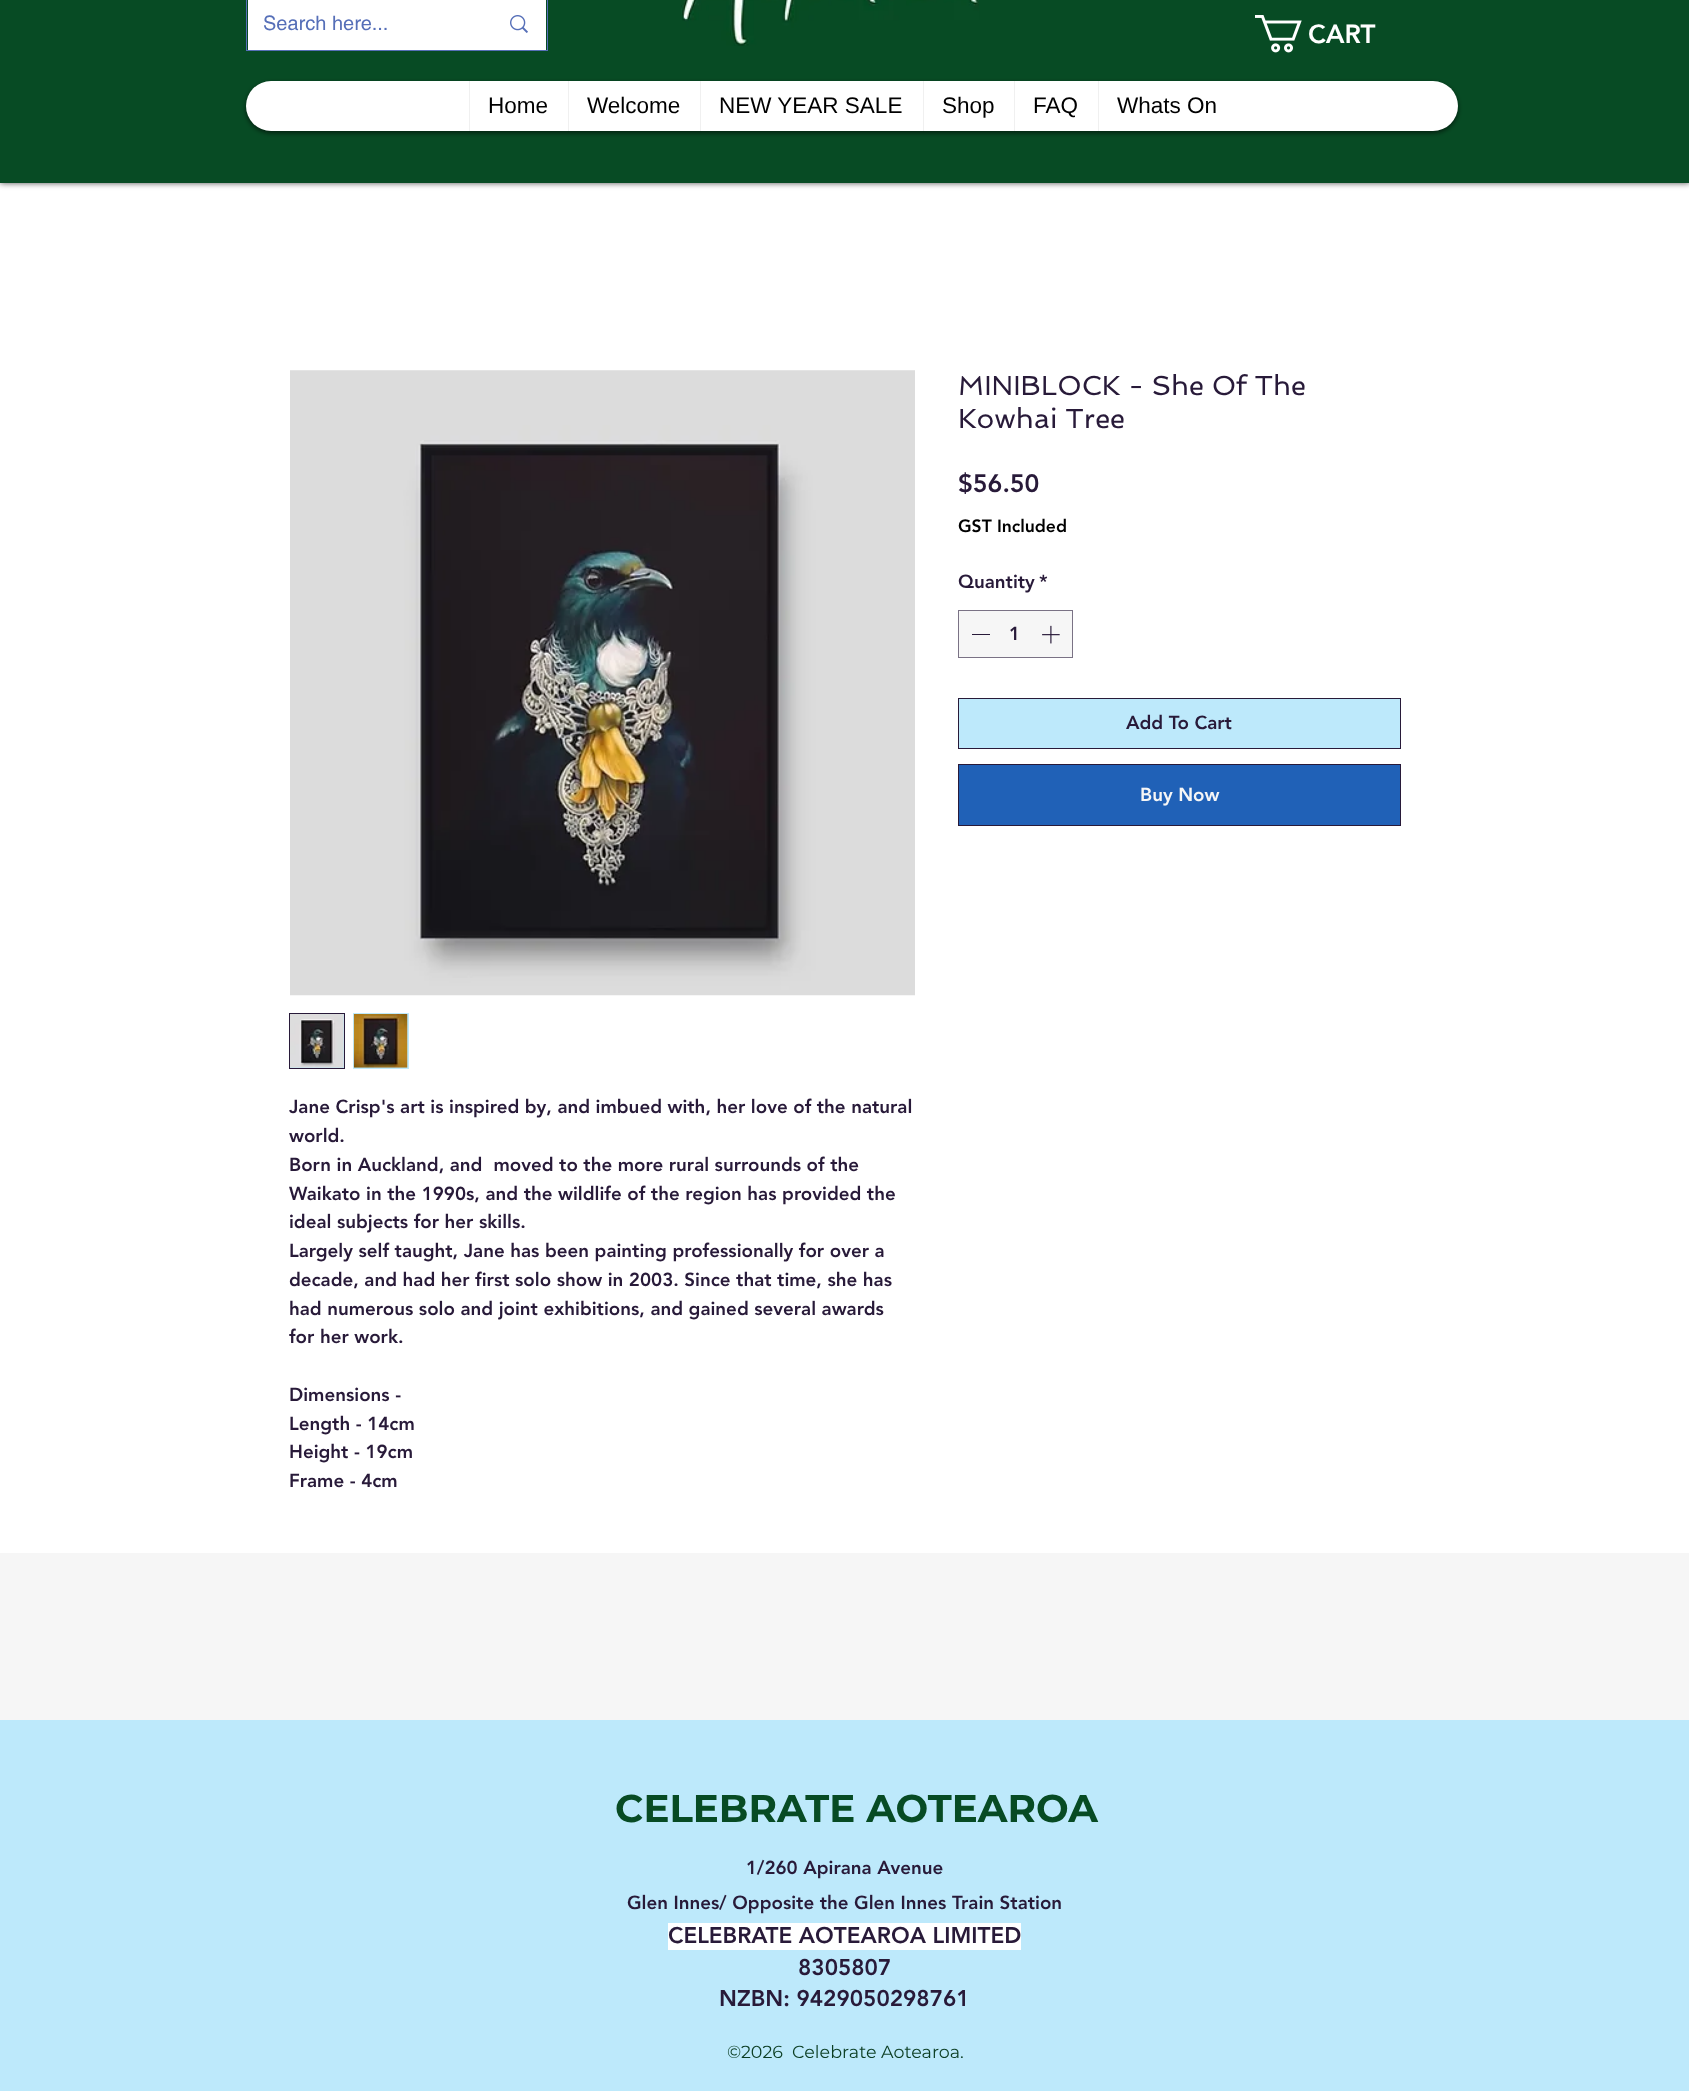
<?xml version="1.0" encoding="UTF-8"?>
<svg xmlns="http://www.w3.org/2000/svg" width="1689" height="2091">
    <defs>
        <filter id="blur1" x="-50%" y="-200%" width="200%" height="500%"><feGaussianBlur stdDeviation="3"/></filter>
        <filter id="blur2" x="-50%" y="-200%" width="200%" height="500%"><feGaussianBlur stdDeviation="2.5"/></filter>
    </defs>
    <rect width="100%" height="100%" fill="#F6F6F6"/>
    <rect x="0" y="183" width="1689" height="1370" fill="#FFFFFF"/>
    <rect x="0" y="-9" width="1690" height="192" fill="#000000" fill-opacity="0.7" filter="url(#blur1)"/>
    <rect x="0" y="0" width="1689" height="183" fill="#074B24"/>
    <rect x="246.5" y="-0.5" width="301" height="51" fill="none" stroke="#566FB8"/>
    <rect x="248" y="0" width="298" height="50" fill="#FFFFFF"/>
    <text x="263" y="30" font-family="helvetica" font-size="20" fill="#566FB8">Search here...</text>
    <image x="510" y="15" width="18" height="18" href="img_01.png"/>
    <image x="681" y="0" width="298" height="46" href="img_02.png"/>
    <image x="1255" y="15" width="47" height="38" href="img_03.png"/>
    <text x="1308" y="43" font-family="'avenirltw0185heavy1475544'" font-size="26" font-weight="900" fill="#FFFFFF">CART</text>
    <rect x="246" y="83" width="1212" height="50" rx="25" fill="#000000" fill-opacity="0.6" filter="url(#blur2)"/>
    <rect x="246" y="81" width="1212" height="50" rx="25" fill="#FFFFFF"/>
    <rect x="469" y="81" width="1" height="50" fill="#F0F0F0"/>
    <text x="488" y="113" font-family="Liberation Sans" font-size="22.5" fill="#000000">Home</text>
    <rect x="568" y="81" width="1" height="50" fill="#F0F0F0"/>
    <text x="587" y="113" font-family="Liberation Sans" font-size="22.5" fill="#000000">Welcome</text>
    <rect x="700" y="81" width="1" height="50" fill="#F0F0F0"/>
    <text x="719" y="113" font-family="Liberation Sans" font-size="22.5" fill="#000000">NEW YEAR SALE</text>
    <rect x="923" y="81" width="1" height="50" fill="#F0F0F0"/>
    <text x="942" y="113" font-family="Liberation Sans" font-size="22.5" fill="#000000">Shop</text>
    <rect x="1014" y="81" width="1" height="50" fill="#F0F0F0"/>
    <text x="1033" y="113" font-family="Liberation Sans" font-size="22.5" fill="#000000">FAQ</text>
    <rect x="1098" y="81" width="1" height="50" fill="#F0F0F0"/>
    <text x="1117" y="113" font-family="Liberation Sans" font-size="22.5" fill="#000000">Whats On</text>
    <text font-family="Spinnaker" font-size="27.5" fill="#281A39">
        <tspan x="958" y="395">MINIBLOCK - She Of The</tspan>
        <tspan x="958" y="428">Kowhai Tree</tspan>
    </text>
    <text x="958" y="492" font-family="'avenirltw0185heavy1475544'" font-size="25" font-weight="900" fill="#281A39">$56.50</text>
    <text x="958" y="532" font-family="'avenirltw0185heavy1475544'" font-size="17.5" font-weight="900" fill="#000000">GST Included</text>
    <text x="958" y="588" font-family="'avenirltw0185heavy1475544'" font-size="18.75" font-weight="900" fill="#281A39">Quantity</text>
    <text x="1039" y="588" font-family="'avenirltw0185heavy1475544'" font-size="18.75" font-weight="900" fill="#281A39">*</text>
    <rect x="958.5" y="610.5" width="114" height="47" fill="#F6F6F6" stroke="#7A7285"/>
    <rect x="972" y="634" width="18" height="1" fill="#281A39"/>
    <text x="1009" y="640" font-family="'avenirltw0185heavy1475544'" font-size="18.75" font-weight="900" fill="#281A39">1</text>
    <image x="1042" y="625" width="18" height="19" href="img_04.png"/>
    <rect x="958.5" y="698.5" width="442" height="50" fill="#BDE9FB" stroke="#281A39"/>
    <text x="1126" y="729" font-family="'avenirltw0185heavy1475544'" font-size="18.75" font-weight="900" fill="#281A39">Add To Cart</text>
    <rect x="958.5" y="764.5" width="442" height="61" fill="#2061B7" stroke="#281A39"/>
    <text x="1140" y="801" font-family="'avenirltw0185heavy1475544'" font-size="18.75" font-weight="900" fill="#F6F6F6">Buy Now</text>
    <image x="290" y="370" width="625" height="626" href="img_05.png"/>
    <rect x="289.5" y="1013.5" width="55" height="55" fill="#BDE9FB" stroke="#281A39"/>
    <image x="290" y="1014" width="54" height="54" href="img_06.png"/>
    <rect x="353" y="1013" width="56" height="56" fill="#BDE9FB"/>
    <image x="353" y="1014" width="55" height="54" href="img_07.png"/>
    <text font-family="'avenirltw0185heavy1475544'" font-size="18.75" font-weight="900" fill="#281A39" xml:space="preserve"><tspan x="289" y="1113">Jane Crisp's art is inspired by, and imbued with, her love of the natural</tspan><tspan x="289" y="1142">world.</tspan><tspan x="289" y="1171">Born in Auckland, and  moved to the more rural surrounds of the</tspan><tspan x="289" y="1200">Waikato in the 1990s, and the wildlife of the region has provided the</tspan><tspan x="289" y="1228">ideal subjects for her skills.</tspan><tspan x="289" y="1257">Largely self taught, Jane has been painting professionally for over a</tspan><tspan x="289" y="1286">decade, and had her first solo show in 2003. Since that time, she has</tspan><tspan x="289" y="1315">had numerous solo and joint exhibitions, and gained several awards</tspan><tspan x="289" y="1343">for her work.</tspan></text>
    <text font-family="'avenirltw0185heavy1475544'" font-size="18.75" font-weight="900" fill="#281A39">
        <tspan x="289" y="1401">Dimensions -</tspan>
        <tspan x="289" y="1430">Length - 14cm</tspan>
        <tspan x="289" y="1458">Height - 19cm</tspan>
        <tspan x="289" y="1487">Frame - 4cm</tspan>
    </text>
    <rect x="0" y="1720" width="1689" height="371" fill="#BDE9FB"/>
    <text x="615" y="1822" font-family="Montserrat" font-size="38.75" font-weight="700" fill="#074B24">CELEBRATE AOTEAROA</text>
    <text x="746" y="1874" font-family="'avenirltw0185heavy1475544'" font-size="18.75" font-weight="900" fill="#281A39">1/260 Apirana Avenue</text>
    <text x="627" y="1909" font-family="'avenirltw0185heavy1475544'" font-size="18.75" font-weight="900" fill="#281A39">Glen Innes/ Opposite the Glen Innes Train Station</text>
    <rect x="668" y="1923" width="353" height="27" fill="#FFFFFF"/>
    <text x="668" y="1943" font-family="'avenirltw0185heavy1475544'" font-size="22.5" font-weight="900" fill="#281A39">CELEBRATE AOTEAROA LIMITED</text>
    <text x="798" y="1975" font-family="'avenirltw0185heavy1475544'" font-size="22.5" font-weight="900" fill="#281A39">8305807</text>
    <text x="719" y="2006" font-family="'avenirltw0185heavy1475544'" font-size="22.5" font-weight="900" fill="#281A39">NZBN: 9429050298761</text>
    <text x="727" y="2058" font-family="Montserrat" font-size="17.5" fill="#0B3D22" xml:space="preserve">©2026  Celebrate Aotearoa.</text>
</svg>
